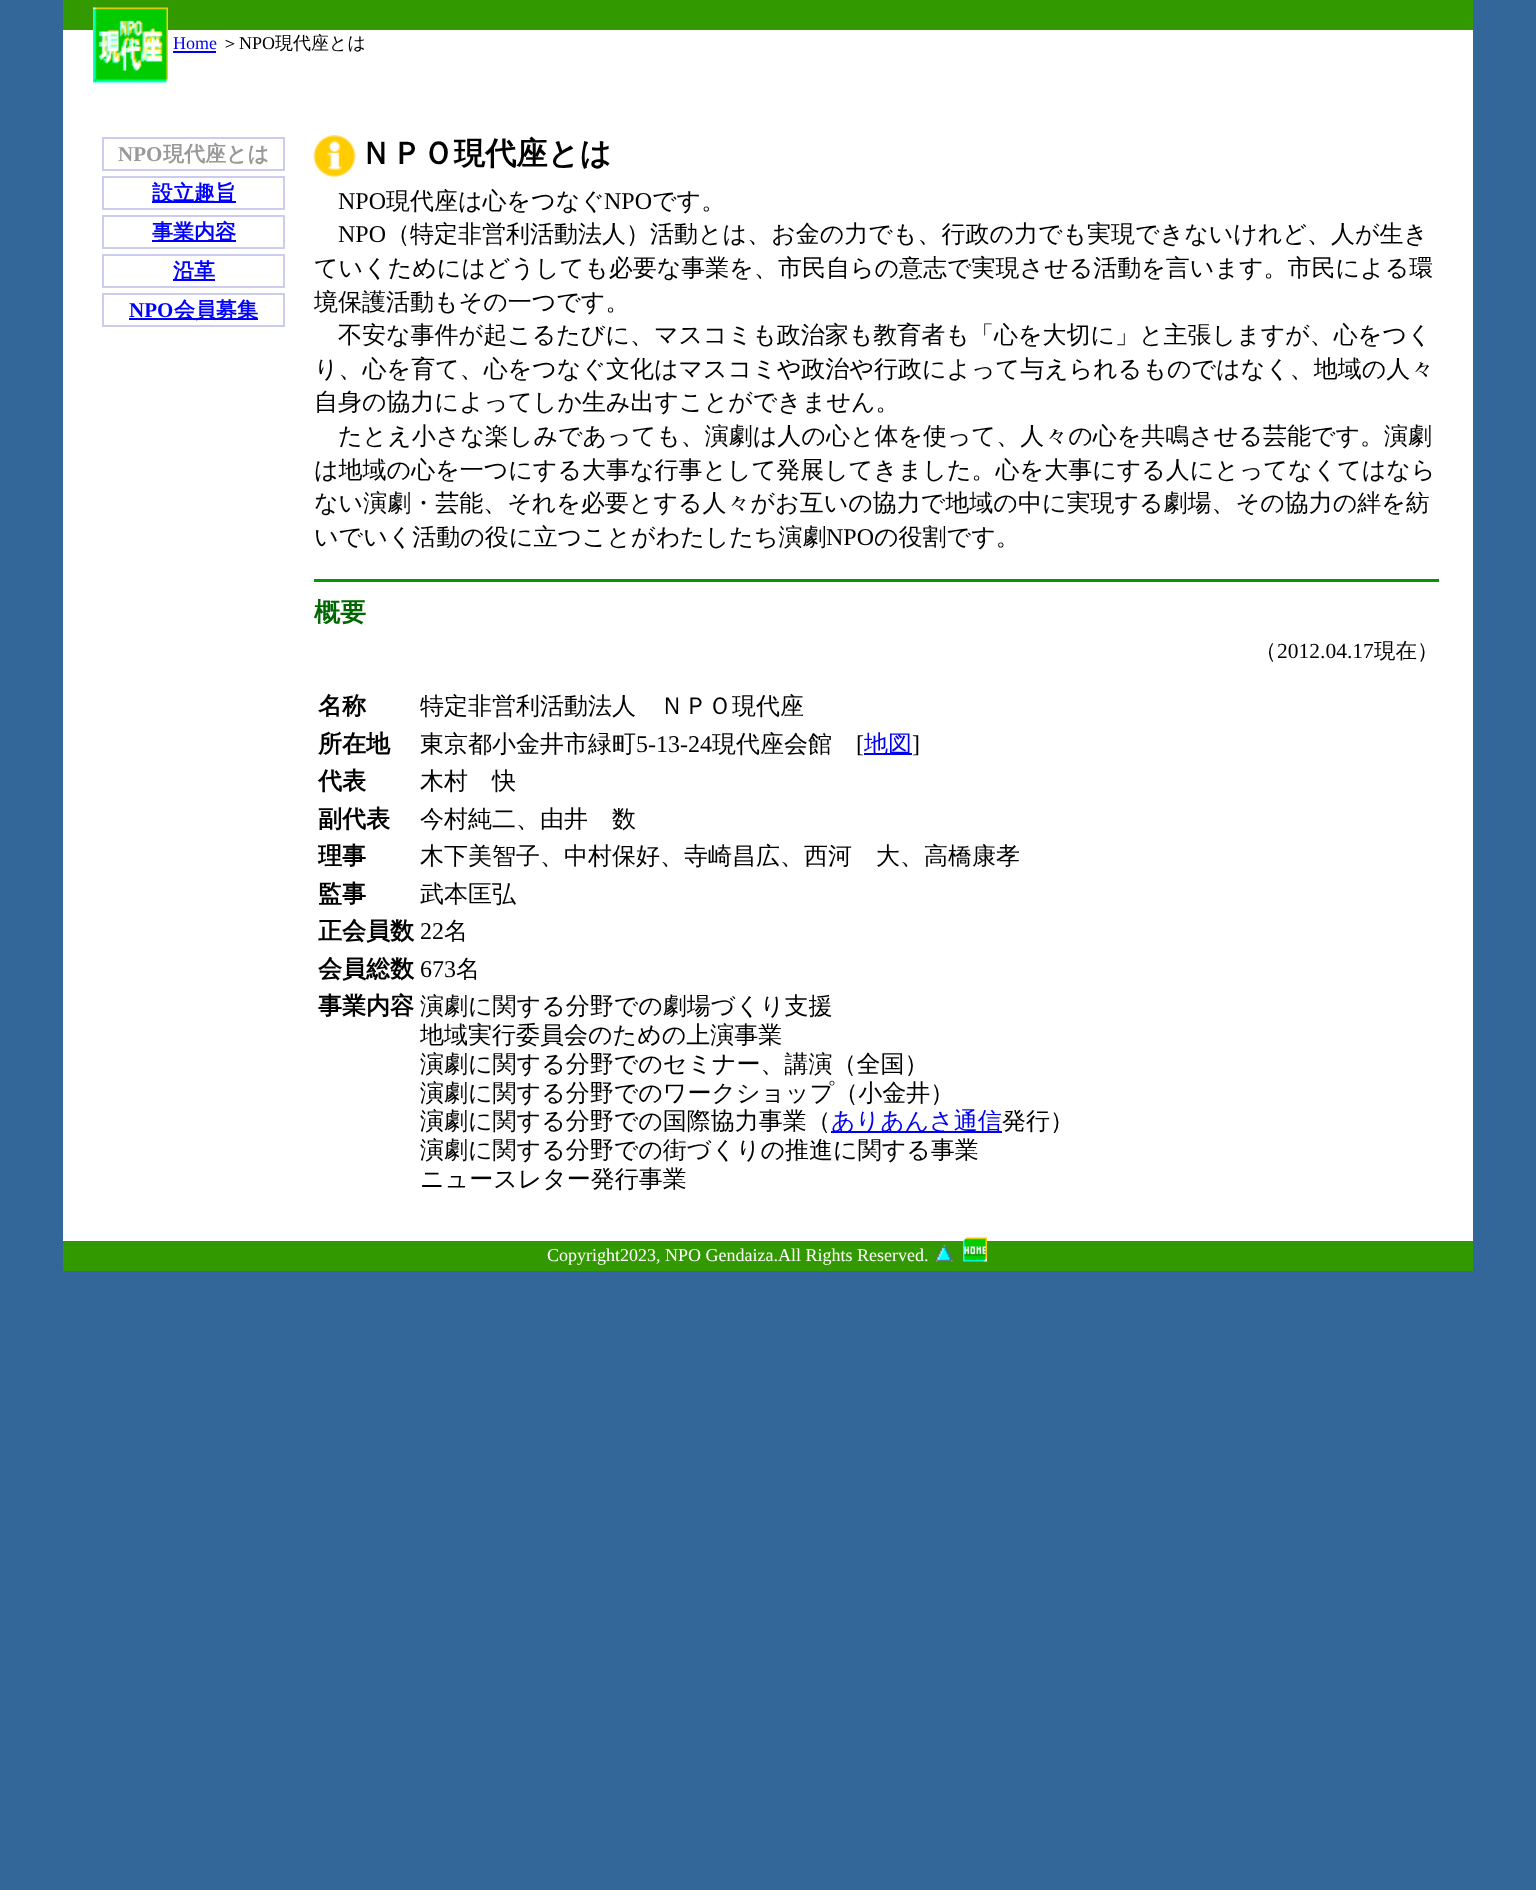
<?xml version="1.0" encoding="UTF-8"?>
<svg xmlns="http://www.w3.org/2000/svg" width="1536" height="1890">
    <rect width="100%" height="100%" fill="#336699"/>
    <rect x="63" y="30" width="1410" height="1211" fill="#FFFFFF"/>
    <rect x="63" y="0" width="1410" height="30" fill="#339900"/>
    <rect x="63" y="1241" width="1410" height="30" fill="#339900"/>
    <image x="93" y="7" width="75" height="76" href="img_01.png"/>
    <text x="173" y="49" font-family="Liberation Serif" font-size="18" fill="#0000EE">Home</text>
    <rect x="173" y="51" width="43" height="2" fill="#0000EE"/>
    <text x="221" y="49" font-family="WenQuanYi Zen Hei" font-size="18" font-weight="500" fill="#000000">＞</text>
    <text x="239" y="49" font-family="Liberation Serif" font-size="18" fill="#000000">NPO</text>
    <text x="275" y="49" font-family="WenQuanYi Zen Hei" font-size="18" font-weight="500" fill="#000000">現代座とは</text>
    <rect x="103" y="138" width="181" height="32" fill="none" stroke="#CCCCEE" stroke-width="2"/>
    <text x="118" y="161" font-family="Liberation Serif" font-size="21" font-weight="700" fill="#999999">NPO</text>
    <text x="163" y="161" font-family="WenQuanYi Zen Hei" font-size="21" font-weight="700" fill="#999999">現代座とは</text>
    <rect x="103" y="177" width="181" height="32" fill="none" stroke="#CCCCEE" stroke-width="2"/>
    <rect x="152" y="201" width="84" height="2" fill="#0000FF"/>
    <text x="152" y="200" font-family="WenQuanYi Zen Hei" font-size="21" font-weight="700" fill="#0000FF">設立趣旨</text>
    <rect x="103" y="216" width="181" height="32" fill="none" stroke="#CCCCEE" stroke-width="2"/>
    <rect x="152" y="240" width="84" height="2" fill="#0000FF"/>
    <text x="152" y="239" font-family="WenQuanYi Zen Hei" font-size="21" font-weight="700" fill="#0000FF">事業内容</text>
    <rect x="103" y="255" width="181" height="32" fill="none" stroke="#CCCCEE" stroke-width="2"/>
    <rect x="173" y="279" width="42" height="2" fill="#0000FF"/>
    <text x="173" y="278" font-family="WenQuanYi Zen Hei" font-size="21" font-weight="700" fill="#0000FF">沿革</text>
    <rect x="103" y="294" width="181" height="32" fill="none" stroke="#CCCCEE" stroke-width="2"/>
    <text x="129" y="317" font-family="Liberation Serif" font-size="21" font-weight="700" fill="#0000FF">NPO</text>
    <rect x="129" y="318" width="129" height="2" fill="#0000FF"/>
    <text x="174" y="317" font-family="WenQuanYi Zen Hei" font-size="21" font-weight="700" fill="#0000FF">会員募集</text>
    <image x="313" y="135" width="43" height="42" href="img_02.png"/>
    <text x="360" y="164" font-family="WenQuanYi Zen Hei" font-size="31.25" font-weight="700" fill="#000000">ＮＰＯ現代座とは</text>
    <text x="338" y="209" font-family="Liberation Serif" font-size="24" fill="#000000">NPO</text>
    <text x="386" y="209" font-family="WenQuanYi Zen Hei" font-size="24" font-weight="500" fill="#000000">現代座は心をつなぐ</text>
    <text x="604" y="209" font-family="Liberation Serif" font-size="24" fill="#000000">NPO</text>
    <text x="652" y="209" font-family="WenQuanYi Zen Hei" font-size="24" font-weight="500" fill="#000000">です。</text>
    <text x="338" y="242" font-family="Liberation Serif" font-size="24" fill="#000000">NPO</text>
    <text x="386" y="242" font-family="WenQuanYi Zen Hei" font-size="24" font-weight="500" fill="#000000">（特定非営利活動法人）活動とは、お金の力でも、行政の力でも実現できないけれど、人が生き</text>
    <text font-family="WenQuanYi Zen Hei" font-size="24" font-weight="500" fill="#000000">
        <tspan x="314" y="276">ていくためにはどうしても必要な事業を、市民自らの意志で実現させる活動を言います。市民による環</tspan>
        <tspan x="314" y="310">境保護活動もその一つです。</tspan>
    </text>
    <text x="338" y="343" font-family="WenQuanYi Zen Hei" font-size="24" font-weight="500" fill="#000000">不安な事件が起こるたびに、マスコミも政治家も教育者も「心を大切に」と主張しますが、心をつく</text>
    <text font-family="WenQuanYi Zen Hei" font-size="24" font-weight="500" fill="#000000">
        <tspan x="314" y="377">り、心を育て、心をつなぐ文化はマスコミや政治や行政によって与えられるものではなく、地域の人々</tspan>
        <tspan x="314" y="410">自身の協力によってしか生み出すことができません。</tspan>
    </text>
    <text x="338" y="444" font-family="WenQuanYi Zen Hei" font-size="24" font-weight="500" fill="#000000">たとえ小さな楽しみであっても、演劇は人の心と体を使って、人々の心を共鳴させる芸能です。演劇</text>
    <text font-family="WenQuanYi Zen Hei" font-size="24" font-weight="500" fill="#000000">
        <tspan x="314" y="478">は地域の心を一つにする大事な行事として発展してきました。心を大事にする人にとってなくてはなら</tspan>
        <tspan x="314" y="511">ない演劇・芸能、それを必要とする人々がお互いの協力で地域の中に実現する劇場、その協力の絆を紡</tspan>
        <tspan x="314" y="545">いでいく活動の役に立つことがわたしたち演劇</tspan>
    </text>
    <text x="826" y="545" font-family="Liberation Serif" font-size="24" fill="#000000">NPO</text>
    <text x="874" y="545" font-family="WenQuanYi Zen Hei" font-size="24" font-weight="500" fill="#000000">の役割です。</text>
    <rect x="314" y="579" width="1125" height="3" fill="#009900"/>
    <text x="314" y="621" font-family="WenQuanYi Zen Hei" font-size="26" font-weight="700" fill="#006600">概要</text>
    <text x="1255" y="658" font-family="WenQuanYi Zen Hei" font-size="21.5" font-weight="500" fill="#000000">（</text>
    <text x="1277" y="658" font-family="Liberation Serif" font-size="21.5" fill="#000000">2012.04.17</text>
    <text x="1374" y="658" font-family="WenQuanYi Zen Hei" font-size="21.5" font-weight="500" fill="#000000">現在）</text>
    <text x="318" y="714" font-family="WenQuanYi Zen Hei" font-size="24" font-weight="700" fill="#000000">名称</text>
    <text x="420" y="714" font-family="WenQuanYi Zen Hei" font-size="24" font-weight="500" fill="#000000">特定非営利活動法人　ＮＰＯ現代座</text>
    <text x="318" y="752" font-family="WenQuanYi Zen Hei" font-size="24" font-weight="700" fill="#000000">所在地</text>
    <text x="420" y="752" font-family="WenQuanYi Zen Hei" font-size="24" font-weight="500" fill="#000000">東京都小金井市緑町</text>
    <text x="636" y="752" font-family="Liberation Serif" font-size="24" fill="#000000">5-13-24</text>
    <text x="712" y="752" font-family="WenQuanYi Zen Hei" font-size="24" font-weight="500" fill="#000000">現代座会館</text>
    <text x="856" y="752" font-family="Liberation Serif" font-size="24" fill="#000000">[</text>
    <rect x="864" y="753" width="48" height="2" fill="#0000EE"/>
    <text x="864" y="752" font-family="WenQuanYi Zen Hei" font-size="24" font-weight="500" fill="#0000EE">地図</text>
    <text x="912" y="752" font-family="Liberation Serif" font-size="24" fill="#000000">]</text>
    <text x="318" y="789" font-family="WenQuanYi Zen Hei" font-size="24" font-weight="700" fill="#000000">代表</text>
    <text x="420" y="789" font-family="WenQuanYi Zen Hei" font-size="24" font-weight="500" fill="#000000">木村　快</text>
    <text x="318" y="827" font-family="WenQuanYi Zen Hei" font-size="24" font-weight="700" fill="#000000">副代表</text>
    <text x="420" y="827" font-family="WenQuanYi Zen Hei" font-size="24" font-weight="500" fill="#000000">今村純二、由井　数</text>
    <text x="318" y="864" font-family="WenQuanYi Zen Hei" font-size="24" font-weight="700" fill="#000000">理事</text>
    <text x="420" y="864" font-family="WenQuanYi Zen Hei" font-size="24" font-weight="500" fill="#000000">木下美智子、中村保好、寺崎昌広、西河　大、高橋康孝</text>
    <text x="318" y="902" font-family="WenQuanYi Zen Hei" font-size="24" font-weight="700" fill="#000000">監事</text>
    <text x="420" y="902" font-family="WenQuanYi Zen Hei" font-size="24" font-weight="500" fill="#000000">武本匡弘</text>
    <text x="318" y="939" font-family="WenQuanYi Zen Hei" font-size="24" font-weight="700" fill="#000000">正会員数</text>
    <text x="420" y="939" font-family="Liberation Serif" font-size="24" fill="#000000">22</text>
    <text x="444" y="939" font-family="WenQuanYi Zen Hei" font-size="24" font-weight="500" fill="#000000">名</text>
    <text x="318" y="977" font-family="WenQuanYi Zen Hei" font-size="24" font-weight="700" fill="#000000">会員総数</text>
    <text x="420" y="977" font-family="Liberation Serif" font-size="24" fill="#000000">673</text>
    <text x="456" y="977" font-family="WenQuanYi Zen Hei" font-size="24" font-weight="500" fill="#000000">名</text>
    <text x="318" y="1014" font-family="WenQuanYi Zen Hei" font-size="24" font-weight="700" fill="#000000">事業内容</text>
    <text font-family="WenQuanYi Zen Hei" font-size="24" font-weight="500" fill="#000000">
        <tspan x="420" y="1014">演劇に関する分野での劇場づくり支援</tspan>
        <tspan x="420" y="1043">地域実行委員会のための上演事業</tspan>
        <tspan x="420" y="1072">演劇に関する分野でのセミナー、講演（全国）</tspan>
        <tspan x="420" y="1101">演劇に関する分野でのワークショップ（小金井）</tspan>
        <tspan x="420" y="1129">演劇に関する分野での国際協力事業（</tspan>
    </text>
    <rect x="831" y="1131" width="171" height="2" fill="#0000EE"/>
    <text x="831" y="1129" font-family="WenQuanYi Zen Hei" font-size="24" font-weight="500" fill="#0000EE">ありあんさ通信</text>
    <text x="1002" y="1129" font-family="WenQuanYi Zen Hei" font-size="24" font-weight="500" fill="#000000">発行）</text>
    <text font-family="WenQuanYi Zen Hei" font-size="24" font-weight="500" fill="#000000">
        <tspan x="420" y="1158">演劇に関する分野での街づくりの推進に関する事業</tspan>
        <tspan x="420" y="1187">ニュースレター発行事業</tspan>
    </text>
    <text x="547" y="1261" font-family="Liberation Serif" font-size="18" fill="#FFFFFF">Copyright2023, NPO Gendaiza.All Rights Reserved.</text>
    <image x="936" y="1245" width="17" height="17" href="img_03.png"/>
    <image x="963" y="1237" width="24" height="25" href="img_04.png"/>
</svg>
